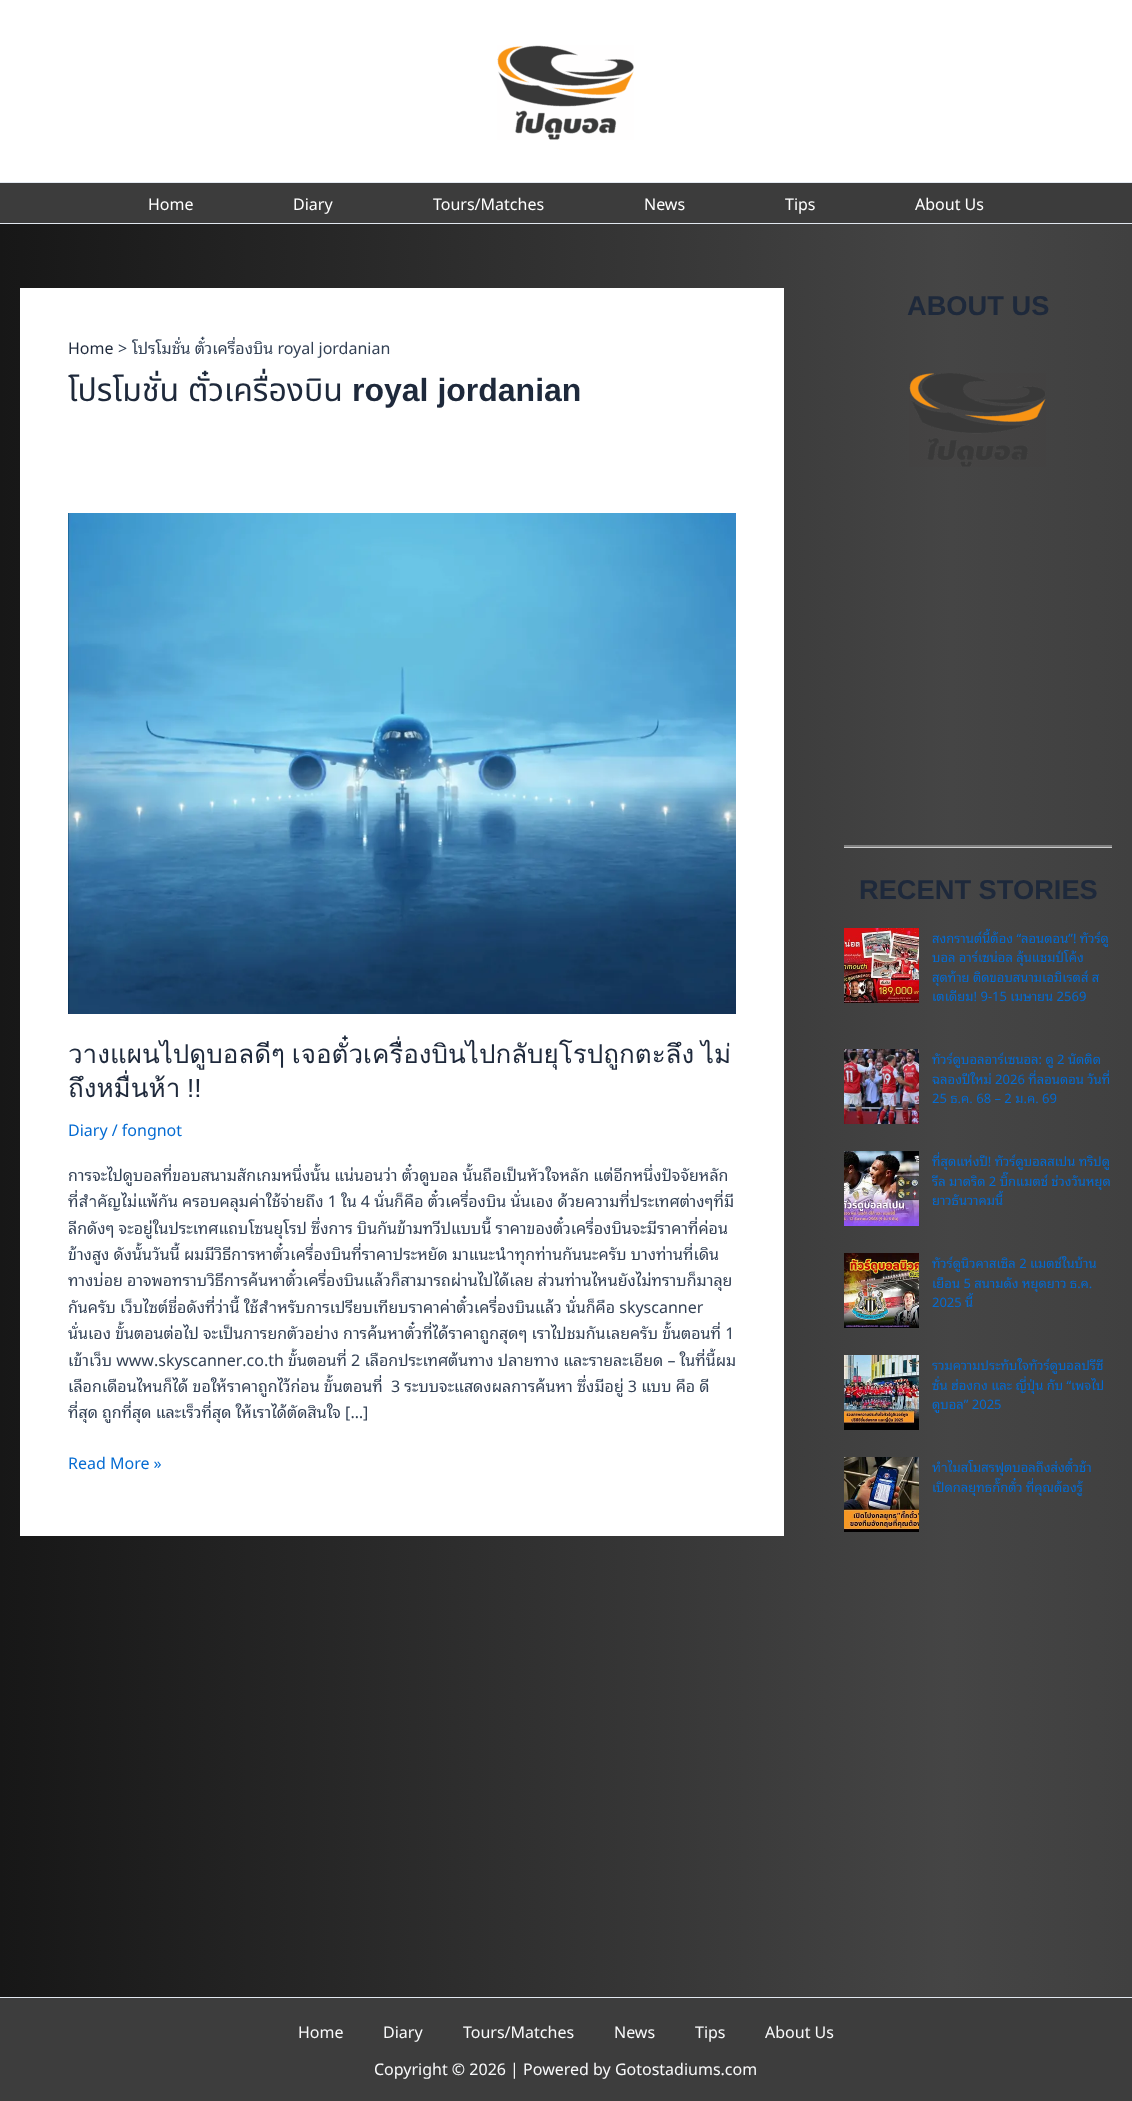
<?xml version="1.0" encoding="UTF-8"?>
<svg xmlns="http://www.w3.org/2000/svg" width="1132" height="2101">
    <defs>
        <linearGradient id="g1" gradientUnits="userSpaceOnUse" x1="0" y1="1051" x2="1132" y2="1051"><stop offset="0" stop-color="#171717"/><stop offset="0.84" stop-color="#454545"/><stop offset="1" stop-color="#404040"/></linearGradient>
        <clipPath id="clip1"><rect x="68" y="513" width="668" height="975"/></clipPath>
    </defs>
    <rect width="100%" height="100%" fill="#FFFFFF"/>
    <rect x="0" y="224" width="1132" height="1773" fill="url(#g1)"/>
    <rect x="0" y="182" width="1132" height="1" fill="#E2E8F0"/>
    <image x="497" y="45" width="137" height="95" href="img_01.png"/>
    <rect x="0" y="183" width="1132" height="40" fill="#3C3C3C"/>
    <rect x="0" y="223" width="1132" height="1" fill="#E2E8F0"/>
    <text x="148" y="210" font-family="Noto Sans Thai Looped" font-size="16" fill="#FFFFFF">Home</text>
    <text x="293" y="210" font-family="Noto Sans Thai Looped" font-size="16" fill="#FFFFFF">Diary</text>
    <text x="433" y="210" font-family="Noto Sans Thai Looped" font-size="16" fill="#FFFFFF">Tours/Matches</text>
    <text x="644" y="210" font-family="Noto Sans Thai Looped" font-size="16" fill="#FFFFFF">News</text>
    <text x="785" y="210" font-family="Noto Sans Thai Looped" font-size="16" fill="#FFFFFF">Tips</text>
    <text x="915" y="210" font-family="Noto Sans Thai Looped" font-size="16" fill="#FFFFFF">About Us</text>
    <rect x="20" y="288" width="764" height="1248" fill="#FFFFFF"/>
    <text x="68" y="354" font-family="Noto Sans Thai Looped" font-size="16" fill="#1E293B">Home</text>
    <text x="118" y="354" font-family="Noto Sans Thai Looped" font-size="16" fill="#334155">&gt;</text>
    <text x="132" y="354" font-family="Noto Sans Thai Looped" font-size="16" fill="#334155">โปรโมชั่น ตั๋วเครื่องบิน royal jordanian</text>
    <text x="68" y="401" font-family="Noto Sans Thai" font-size="32" fill="#1E293B">โปรโมชั่น</text>
    <text x="188" y="401" font-family="Noto Sans Thai" font-size="32" fill="#1E293B">ตั๋วเครื่องบิน</text>
    <text x="352" y="401" font-family="Liberation Sans" font-size="32" font-weight="700" fill="#1E293B">royal jordanian</text>
    <image x="68" y="513" width="668" height="501" href="img_02.png"/>
    <text x="68" y="1063" word-spacing="-2" font-family="Loma" font-size="26" fill="#1E293B">วางแผนไปดูบอลดีๆ เจอตั๋วเครื่องบินไปกลับยุโรปถูกตะลึง ไม่</text>
    <g clip-path="url(#clip1)">
        <text x="68" y="1097" font-family="Loma" font-size="26" fill="#1E293B">ถึงหมื่นห้า</text>
    </g>
    <text x="187" y="1097" font-family="Liberation Sans" font-size="26" fill="#1E293B">!!</text>
    <text x="68" y="1136" font-family="Noto Sans Thai Looped" font-size="16" fill="#046BD2">Diary / fongnot</text>
    <text x="68" y="1181" font-family="Noto Sans Thai Looped" font-size="16" fill="#334155">การจะไปดูบอลที่ขอบสนามสักเกมหนึ่งนั้น แน่นอนว่า ตั๋วดูบอล นั้นถือเป็นหัวใจหลัก แต่อีกหนึ่งปัจจัยหลัก</text>
    <g clip-path="url(#clip1)">
        <text font-family="Noto Sans Thai Looped" font-size="16" fill="#334155">
            <tspan x="68" y="1207">ที่สำคัญไม่แพ้กัน ครอบคลุมค่าใช้จ่ายถึง 1 ใน 4 นั่นก็คือ ตั๋วเครื่องบิน นั่นเอง ด้วยความที่ประเทศต่างๆที่มี</tspan>
            <tspan x="68" y="1234">ลีกดังๆ จะอยู่ในประเทศแถบโซนยุโรป ซึ่งการ บินกันข้ามทวีปแบบนี้ ราคาของตั๋วเครื่องบินจะมีราคาที่ค่อน</tspan>
        </text>
    </g>
    <text font-family="Noto Sans Thai Looped" font-size="16" fill="#334155">
        <tspan x="68" y="1260">ข้างสูง ดังนั้นวันนี้ ผมมีวิธีการหาตั๋วเครื่องบินที่ราคาประหยัด มาแนะนำทุกท่านกันนะครับ บางท่านที่เดิน</tspan>
        <tspan x="68" y="1286">ทางบ่อย อาจพอทราบวิธีการค้นหาตั๋วเครื่องบินแล้วก็สามารถผ่านไปได้เลย ส่วนท่านไหนยังไม่ทราบก็มาลุย</tspan>
        <tspan x="68" y="1313">กันครับ เว็บไซต์ชื่อดังที่ว่านี้ ใช้สำหรับการเปรียบเทียบราคาค่าตั๋วเครื่องบินแล้ว นั่นก็คือ skyscanner</tspan>
    </text>
    <g clip-path="url(#clip1)">
        <text x="68" y="1339" font-family="Noto Sans Thai Looped" font-size="16" fill="#334155">นั่นเอง ขั้นตอนต่อไป จะเป็นการยกตัวอย่าง การค้นหาตั๋วที่ได้ราคาถูกสุดๆ เราไปชมกันเลยครับ ขั้นตอนที่ 1</text>
    </g>
    <text x="68" y="1366" font-family="Noto Sans Thai Looped" font-size="16" fill="#334155">เข้าเว็บ www.skyscanner.co.th ขั้นตอนที่ 2 เลือกประเทศต้นทาง ปลายทาง และรายละเอียด – ในที่นี้ผม</text>
    <g clip-path="url(#clip1)">
        <text font-family="Noto Sans Thai Looped" font-size="16" fill="#334155" xml:space="preserve"><tspan x="68" y="1392">เลือกเดือนไหนก็ได้ ขอให้ราคาถูกไว้ก่อน ขั้นตอนที่  3 ระบบจะแสดงผลการค้นหา ซึ่งมีอยู่ 3 แบบ คือ ดี</tspan><tspan x="68" y="1418">ที่สุด ถูกที่สุด และเร็วที่สุด ให้เราได้ตัดสินใจ […]</tspan></text>
    </g>
    <text x="68" y="1469" font-family="Noto Sans Thai Looped" font-size="16" fill="#046BD2">Read More »</text>
    <text x="907" y="315" font-family="Liberation Sans" font-size="27.25" font-weight="700" fill="#1E293B">ABOUT US</text>
    <image x="909" y="373" width="137" height="94" href="img_03.png"/>
    <rect x="844" y="847" width="268" height="1" fill="#CCCCCC"/>
    <rect x="844" y="845" width="268" height="2" fill="#808080"/>
    <text x="859" y="899" font-family="Liberation Sans" font-size="27.25" font-weight="700" fill="#1E293B">RECENT STORIES</text>
    <image x="844" y="928" width="75" height="75" href="img_04.png"/>
    <text font-family="Noto Sans Thai Looped" font-size="13" fill="#046BD2">
        <tspan x="932" y="943">สงกรานต์นี้ต้อง “ลอนดอน”! ทัวร์ดู</tspan>
        <tspan x="932" y="962">บอล อาร์เซน่อล ลุ้นแชมป์โค้ง</tspan>
        <tspan x="932" y="982">สุดท้าย ติดขอบสนามเอมิเรตส์ ส</tspan>
        <tspan x="932" y="1001">เตเดียม! 9-15 เมษายน 2569</tspan>
    </text>
    <image x="844" y="1049" width="75" height="75" href="img_05.png"/>
    <text font-family="Noto Sans Thai Looped" font-size="13" fill="#046BD2">
        <tspan x="932" y="1064">ทัวร์ดูบอลอาร์เซนอล: ดู 2 นัดติด</tspan>
        <tspan x="932" y="1084">ฉลองปีใหม่ 2026 ที่ลอนดอน วันที่</tspan>
        <tspan x="932" y="1103">25 ธ.ค. 68 – 2 ม.ค. 69</tspan>
    </text>
    <image x="844" y="1151" width="75" height="75" href="img_06.png"/>
    <text font-family="Noto Sans Thai Looped" font-size="13" fill="#046BD2">
        <tspan x="932" y="1166">ที่สุดแห่งปี! ทัวร์ดูบอลสเปน ทริปดู</tspan>
        <tspan x="932" y="1186">รีล มาดริด 2 บิ๊กแมตช์ ช่วงวันหยุด</tspan>
        <tspan x="932" y="1205">ยาวธันวาคมนี้</tspan>
    </text>
    <image x="844" y="1253" width="75" height="75" href="img_07.png"/>
    <text font-family="Noto Sans Thai Looped" font-size="13" fill="#046BD2">
        <tspan x="932" y="1268">ทัวร์ดูนิวคาสเซิล 2 แมตช์ในบ้าน</tspan>
        <tspan x="932" y="1288">เยือน 5 สนามดัง หยุดยาว ธ.ค.</tspan>
        <tspan x="932" y="1307">2025 นี้</tspan>
    </text>
    <image x="844" y="1355" width="75" height="75" href="img_08.png"/>
    <text font-family="Noto Sans Thai Looped" font-size="13" fill="#046BD2">
        <tspan x="932" y="1370">รวมความประทับใจทัวร์ดูบอลปรีซี</tspan>
        <tspan x="932" y="1390">ซั่น ฮ่องกง และ ญี่ปุ่น กับ “เพจไป</tspan>
        <tspan x="932" y="1409">ดูบอล” 2025</tspan>
    </text>
    <image x="844" y="1457" width="75" height="75" href="img_09.png"/>
    <text font-family="Noto Sans Thai Looped" font-size="13" fill="#046BD2">
        <tspan x="932" y="1472">ทำไมสโมสรฟุตบอลถึงส่งตั๋วช้า</tspan>
        <tspan x="932" y="1492">เปิดกลยุทธกั๊กตั๋ว ที่คุณต้องรู้</tspan>
    </text>
    <rect x="0" y="1998" width="1132" height="103" fill="#3D3D3D"/>
    <rect x="0" y="1997" width="1132" height="1" fill="#E2E8F0"/>
    <text x="298" y="2038" font-family="Noto Sans Thai Looped" font-size="16" fill="#F9FAFB">Home</text>
    <text x="383" y="2038" font-family="Noto Sans Thai Looped" font-size="16" fill="#F9FAFB">Diary</text>
    <text x="463" y="2038" font-family="Noto Sans Thai Looped" font-size="16" fill="#F9FAFB">Tours/Matches</text>
    <text x="614" y="2038" font-family="Noto Sans Thai Looped" font-size="16" fill="#F9FAFB">News</text>
    <text x="695" y="2038" font-family="Noto Sans Thai Looped" font-size="16" fill="#F9FAFB">Tips</text>
    <text x="765" y="2038" font-family="Noto Sans Thai Looped" font-size="16" fill="#F9FAFB">About Us</text>
    <text x="374" y="2075" font-family="Noto Sans Thai Looped" font-size="16" fill="#F9FAFB">Copyright © 2026 | Powered by Gotostadiums.com</text>
</svg>
